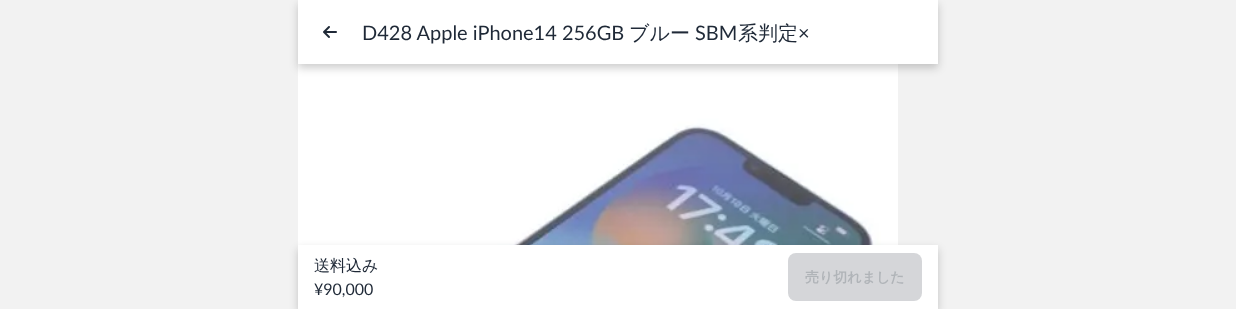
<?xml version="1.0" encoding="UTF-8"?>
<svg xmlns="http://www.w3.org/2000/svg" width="1236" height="309">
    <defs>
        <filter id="blur1" x="-50%" y="-200%" width="200%" height="500%"><feGaussianBlur stdDeviation="4"/></filter>
    </defs>
    <rect width="100%" height="100%" fill="#F2F2F2"/>
    <image x="298" y="64" width="600" height="181" href="img_02.png"/>
    <rect x="298" y="4" width="640" height="64" fill="#000000" fill-opacity="0.2" filter="url(#blur1)"/>
    <rect x="298" y="0" width="640" height="64" fill="#FFFFFF"/>
    <image x="323" y="26" width="14" height="12" href="img_01.png"/>
    <text x="362" y="40" font-family="Lato" font-size="20" fill="#1F2937">D428 Apple iPhone14 256GB</text>
    <text x="629" y="40" font-family="WenQuanYi Zen Hei" font-size="20" font-weight="500" fill="#1F2937">ブルー</text>
    <text x="695" y="40" font-family="Lato" font-size="20" fill="#1F2937">SBM</text>
    <text x="738" y="40" font-family="WenQuanYi Zen Hei" font-size="20" font-weight="500" fill="#1F2937">系判定</text>
    <text x="798" y="40" font-family="Lato" font-size="20" fill="#1F2937">×</text>
    <rect x="298" y="249" width="640" height="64" fill="#000000" fill-opacity="0.2" filter="url(#blur1)"/>
    <rect x="298" y="245" width="640" height="64" fill="#FFFFFF"/>
    <text x="314" y="271" font-family="WenQuanYi Zen Hei" font-size="16" font-weight="500" fill="#1F2937">送料込み</text>
    <text x="314" y="295" font-family="Lato" font-size="16" fill="#1F2937">¥90,000</text>
    <rect x="788" y="253" width="134" height="48" rx="8" fill="#2B3440" fill-opacity="0.2"/>
    <text x="805" y="282" font-family="WenQuanYi Zen Hei" font-size="14" font-weight="700" fill="#B0B4B8">売り切れました</text>
</svg>
